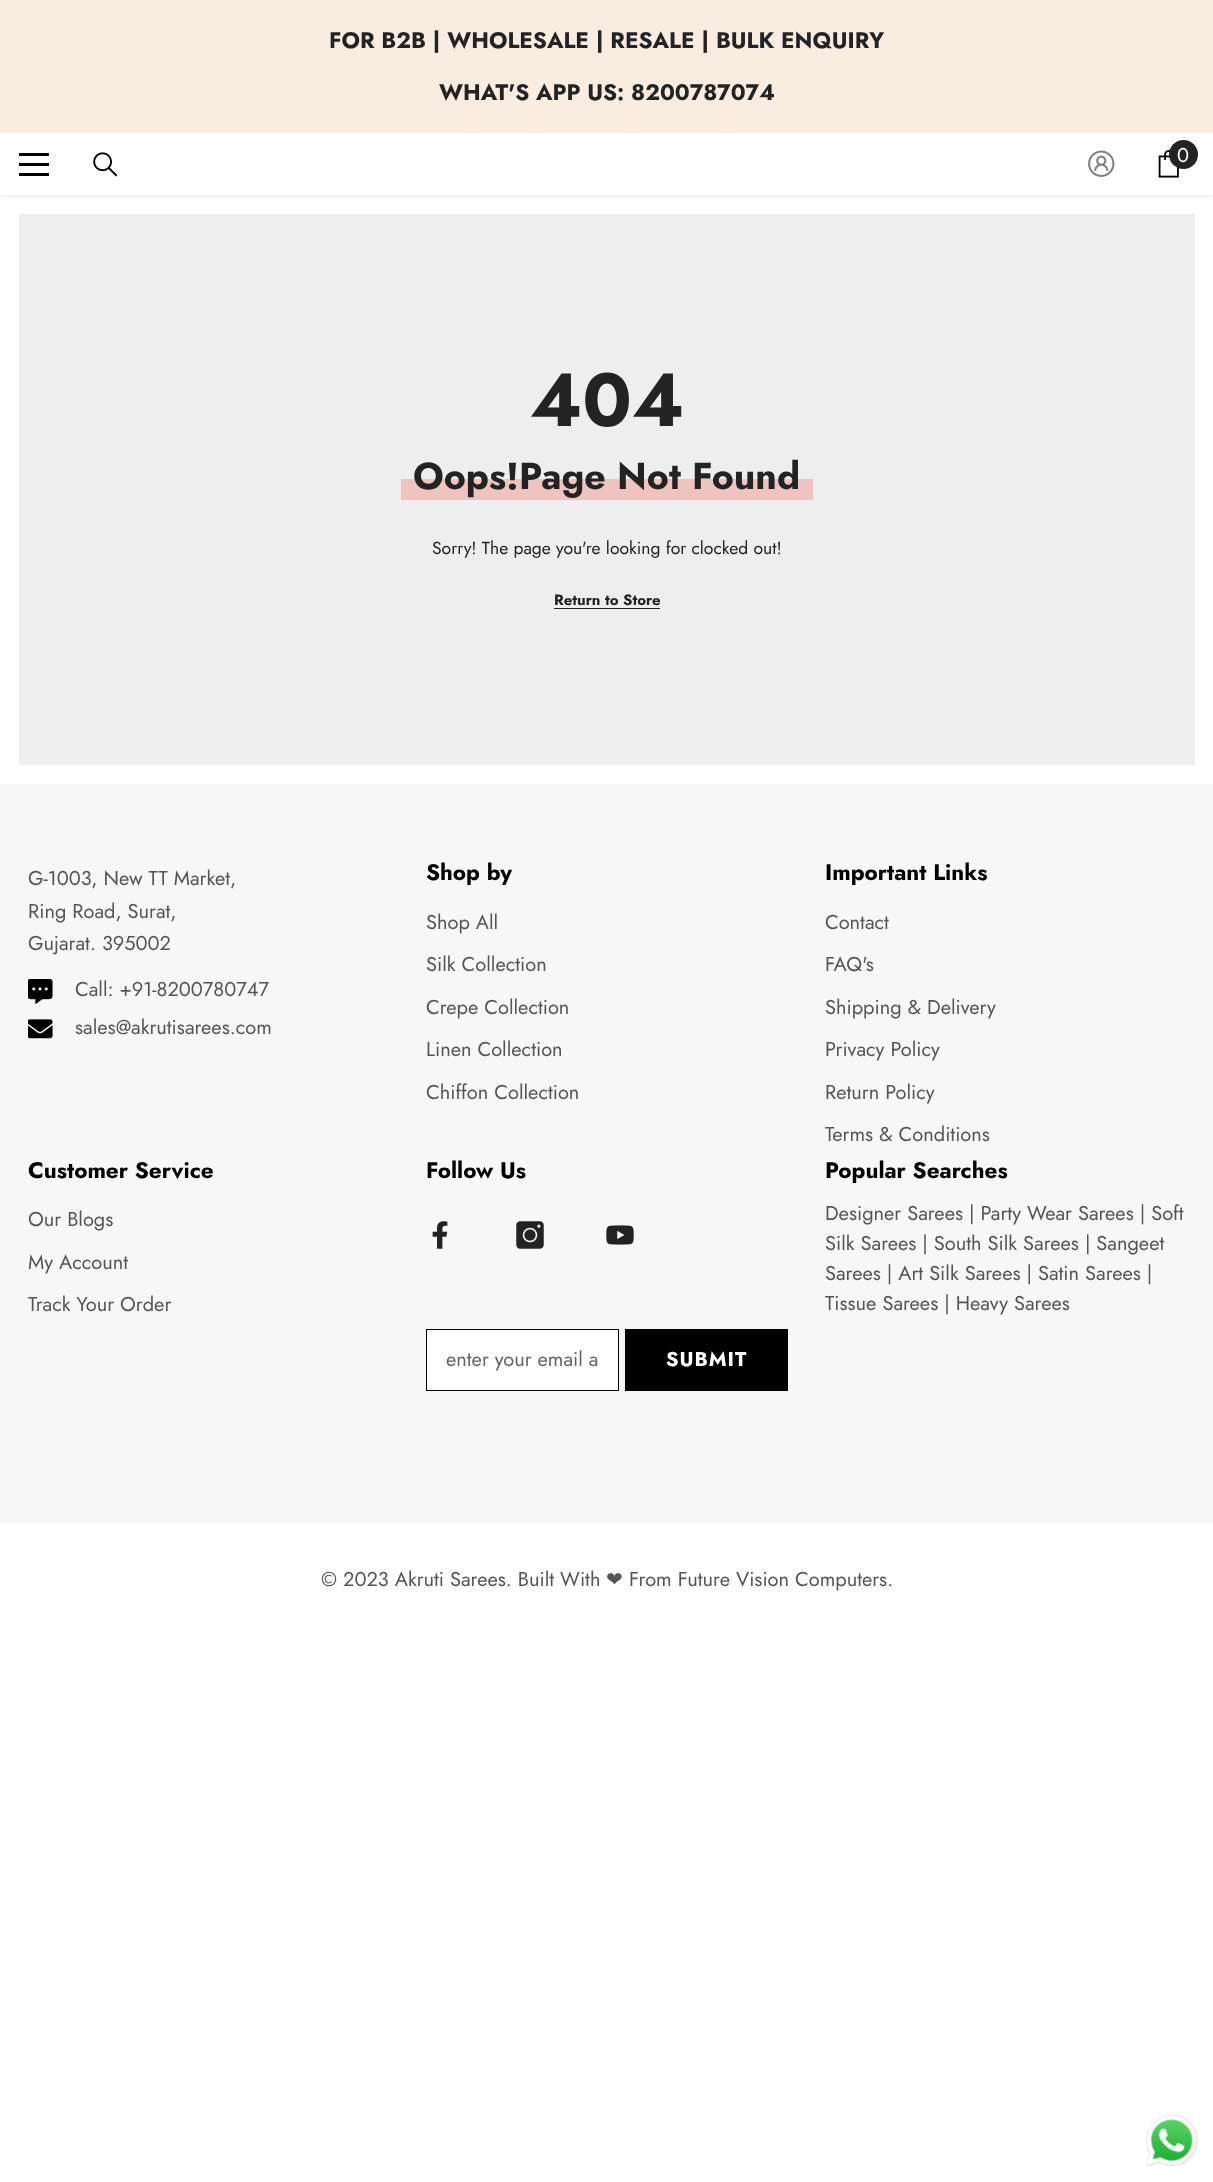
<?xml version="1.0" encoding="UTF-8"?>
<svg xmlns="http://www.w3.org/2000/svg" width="1213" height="2182">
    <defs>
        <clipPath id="clip1"><rect x="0" y="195" width="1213" height="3"/></clipPath>
        <filter id="blur1" x="-50%" y="-200%" width="200%" height="500%"><feGaussianBlur stdDeviation="2"/></filter>
    </defs>
    <rect width="100%" height="100%" fill="#FFFFFF"/>
    <rect x="0" y="0" width="1213" height="133" fill="#F9EDE1"/>
    <text x="329" y="48" font-family="Jost" font-size="22.5" font-weight="700" fill="#232323">FOR B2B | WHOLESALE | RESALE | BULK ENQUIRY</text>
    <text x="439" y="100" font-family="Jost" font-size="22.5" font-weight="700" fill="#232323">WHAT'S APP US: 8200787074</text>
    <g clip-path="url(#clip1)">
        <rect x="0" y="134" width="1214" height="62" fill="#000000" fill-opacity="0.1" filter="url(#blur1)"/>
    </g>
    <rect x="19" y="163" width="30" height="3" fill="#000000"/>
    <rect x="19" y="153" width="30" height="3" fill="#000000"/>
    <rect x="19" y="173" width="30" height="3" fill="#000000"/>
    <image x="93" y="152" width="25" height="25" href="img_01.png"/>
    <image x="1088" y="150" width="27" height="27" href="img_02.png"/>
    <image x="1158" y="150" width="21" height="28" href="img_03.png"/>
    <circle cx="1183.5" cy="154.5" r="14.5" fill="#232323"/>
    <text x="1177" y="162" font-family="Jost" font-size="20" fill="#FFFFFF">0</text>
    <rect x="19" y="214" width="1176" height="551" fill="#EEEEEE"/>
    <text x="530" y="426" font-family="Jost" font-size="75" font-weight="700" fill="#232323">404</text>
    <rect x="401" y="479" width="412" height="21" fill="#EFC3C0"/>
    <text x="413" y="489" font-family="Jost" font-size="37.5" font-weight="700" fill="#232323">Oops!Page Not Found</text>
    <text x="432" y="554" font-family="Jost" font-size="17.5" fill="#232323">Sorry! The page you're looking for clocked out!</text>
    <text x="554" y="605" font-family="Jost" font-size="15" font-weight="700" fill="#232323">Return to Store</text>
    <rect x="554" y="608" width="106" height="1" fill="#232323"/>
    <rect x="0" y="784" width="1213" height="739" fill="#F7F7F7"/>
    <text font-family="Jost" font-size="20" fill="#555555">
        <tspan x="28" y="885">G-1003, New TT Market,</tspan>
        <tspan x="28" y="918">Ring Road, Surat,</tspan>
        <tspan x="28" y="950">Gujarat. 395002</tspan>
    </text>
    <image x="28" y="979" width="25" height="25" href="img_04.png"/>
    <text x="75" y="996" font-family="Jost" font-size="20" fill="#555555">Call: +91-8200780747</text>
    <image x="28" y="1019" width="25" height="20" href="img_05.png"/>
    <text x="75" y="1034" font-family="Jost" font-size="20" fill="#555555">sales@akrutisarees.com</text>
    <text x="426" y="880" font-family="Jost" font-size="22.5" font-weight="700" fill="#000000">Shop by</text>
    <text x="426" y="929" font-family="Jost" font-size="20" fill="#555555">Shop All</text>
    <text x="426" y="971" font-family="Jost" font-size="20" fill="#555555">Silk Collection</text>
    <text x="426" y="1014" font-family="Jost" font-size="20" fill="#555555">Crepe Collection</text>
    <text x="426" y="1056" font-family="Jost" font-size="20" fill="#555555">Linen Collection</text>
    <text x="426" y="1099" font-family="Jost" font-size="20" fill="#555555">Chiffon Collection</text>
    <text x="825" y="880" font-family="Jost" font-size="22.5" font-weight="700" fill="#000000">Important Links</text>
    <text x="825" y="929" font-family="Jost" font-size="20" fill="#555555">Contact</text>
    <text x="825" y="971" font-family="Jost" font-size="20" fill="#555555">FAQ's</text>
    <text x="825" y="1014" font-family="Jost" font-size="20" fill="#555555">Shipping &amp; Delivery</text>
    <text x="825" y="1056" font-family="Jost" font-size="20" fill="#555555">Privacy Policy</text>
    <text x="825" y="1099" font-family="Jost" font-size="20" fill="#555555">Return Policy</text>
    <text x="825" y="1141" font-family="Jost" font-size="20" fill="#555555">Terms &amp; Conditions</text>
    <text x="28" y="1178" font-family="Jost" font-size="22.5" font-weight="700" fill="#000000">Customer Service</text>
    <text x="28" y="1226" font-family="Jost" font-size="20" fill="#555555">Our Blogs</text>
    <text x="28" y="1269" font-family="Jost" font-size="20" fill="#555555">My Account</text>
    <text x="28" y="1311" font-family="Jost" font-size="20" fill="#555555">Track Your Order</text>
    <text x="426" y="1178" font-family="Jost" font-size="22.5" font-weight="700" fill="#000000">Follow Us</text>
    <image x="432" y="1221" width="16" height="28" href="img_06.png"/>
    <image x="516" y="1221" width="28" height="28" href="img_07.png"/>
    <image x="606" y="1225" width="28" height="20" href="img_08.png"/>
    <rect x="426.5" y="1329.5" width="192" height="61" fill="#FFFFFF" stroke="#000000"/>
    <text x="446" y="1366" font-family="Jost" font-size="20" fill="#646464">enter your email a</text>
    <rect x="625" y="1329" width="163" height="62" fill="#000000"/>
    <text x="666" y="1366" font-family="Jost" font-size="20" font-weight="700" letter-spacing="1" fill="#FFFFFF">SUBMIT</text>
    <text x="825" y="1178" font-family="Jost" font-size="22.5" font-weight="700" fill="#000000">Popular Searches</text>
    <text font-family="Jost" font-size="20" fill="#555555">
        <tspan x="825" y="1220">Designer Sarees | Party Wear Sarees | Soft</tspan>
        <tspan x="825" y="1250">Silk Sarees | South Silk Sarees | Sangeet</tspan>
        <tspan x="825" y="1280">Sarees | Art Silk Sarees | Satin Sarees |</tspan>
        <tspan x="825" y="1310">Tissue Sarees | Heavy Sarees</tspan>
    </text>
    <text x="321" y="1586" font-family="Jost" font-size="20" fill="#555555">© 2023 Akruti Sarees. Built With</text>
    <text x="606" y="1586" font-family="DejaVu Sans" font-size="20" fill="#555555">❤</text>
    <text x="629" y="1586" font-family="Jost" font-size="20" fill="#555555">From Future Vision Computers.</text>
    <image x="1145" y="2114" width="53" height="53" href="img_09.png"/>
</svg>
